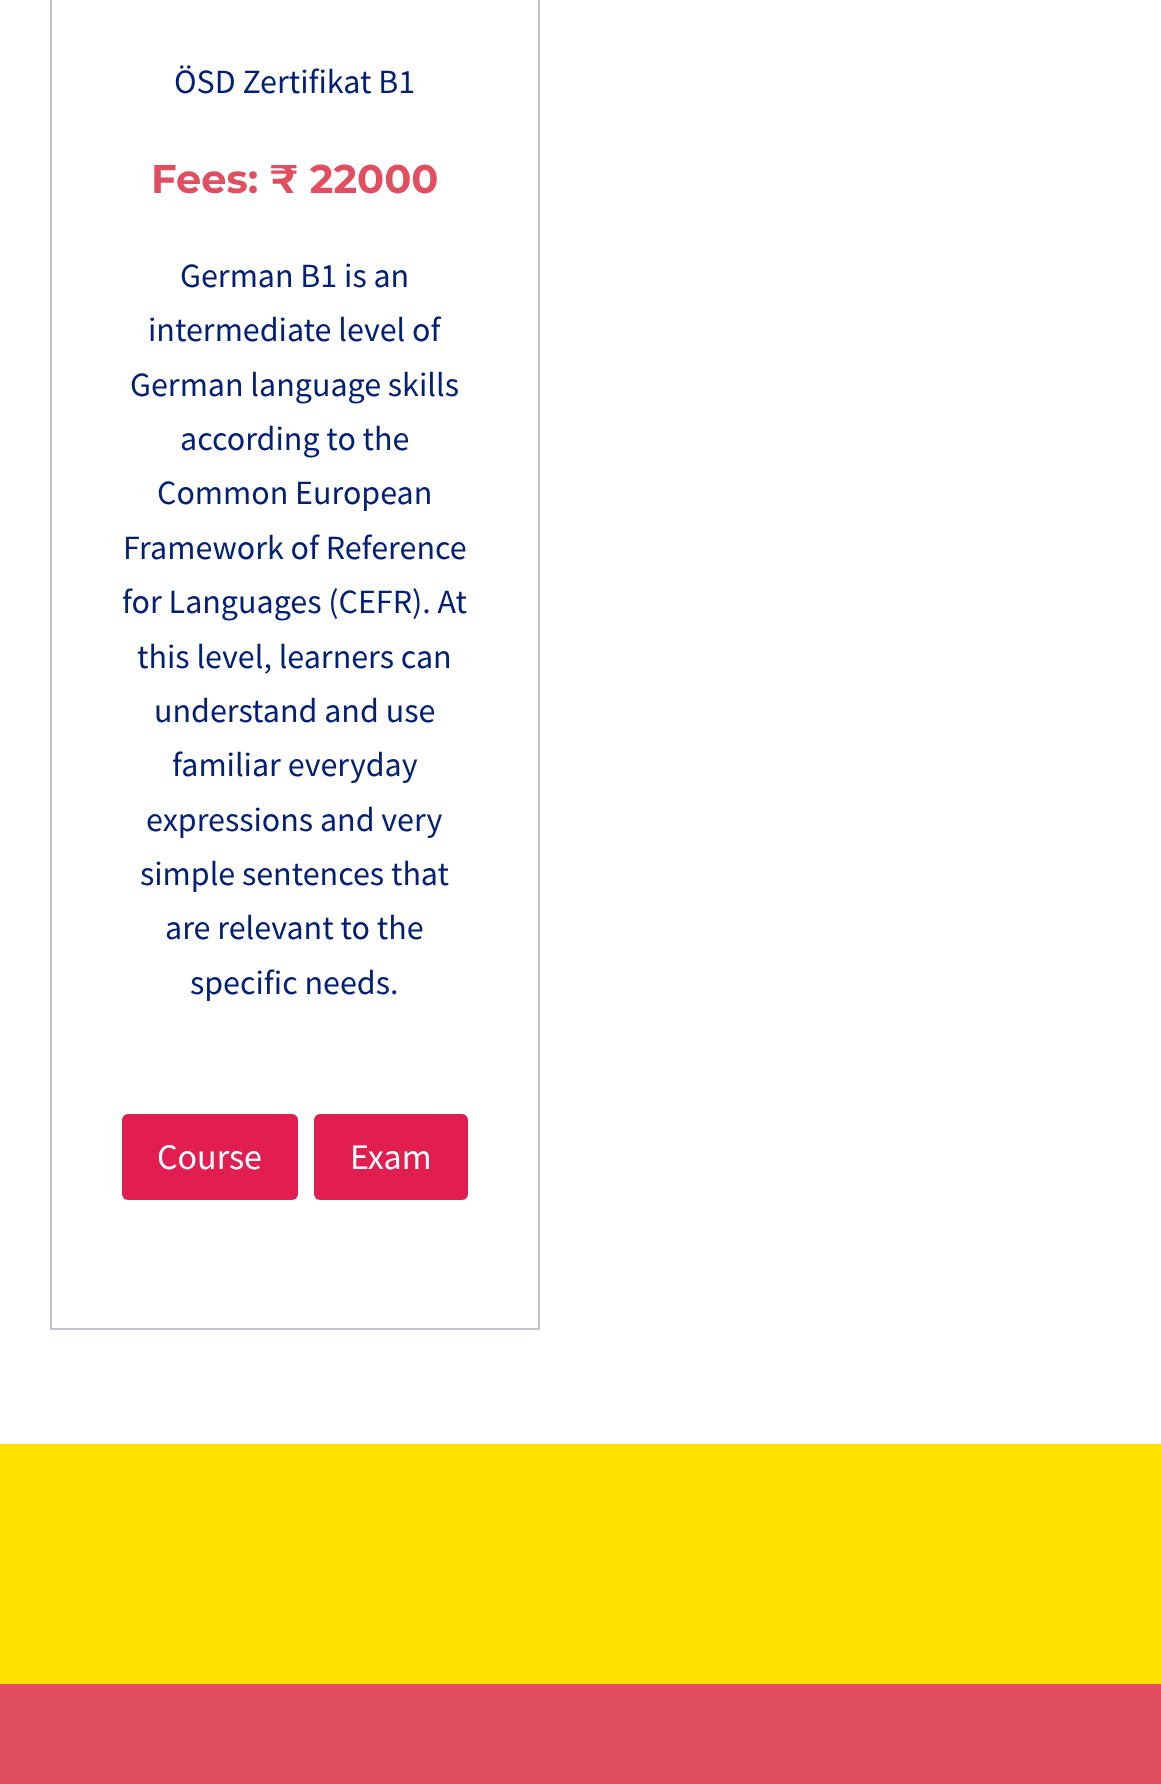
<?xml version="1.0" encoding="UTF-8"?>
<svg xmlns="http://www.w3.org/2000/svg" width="1161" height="1784">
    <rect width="100%" height="100%" fill="#FFFFFF"/>
    <rect x="51" y="-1" width="488" height="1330" fill="none" stroke="#C3C2CF" stroke-width="2"/>
    <text x="174" y="93" font-family="Source Sans Pro" font-size="34" fill="#032075">ÖSD Zertifikat B1</text>
    <text x="151" y="193" font-family="Montserrat" font-size="40" font-weight="100" fill="#E04E5F">Fees: ₹ 22000</text>
    <text x="180" y="287" font-family="Source Sans Pro" font-size="34" fill="#032075">German B1 is an</text>
    <text x="148" y="341" font-family="Source Sans Pro" font-size="34" fill="#032075">intermediate level of</text>
    <text x="130" y="396" font-family="Source Sans Pro" font-size="34" fill="#032075">German language skills</text>
    <text x="180" y="450" font-family="Source Sans Pro" font-size="34" fill="#032075">according to the</text>
    <text x="157" y="504" font-family="Source Sans Pro" font-size="34" fill="#032075">Common European</text>
    <text x="123" y="559" font-family="Source Sans Pro" font-size="34" fill="#032075">Framework of Reference</text>
    <text x="122" y="613" font-family="Source Sans Pro" font-size="34" fill="#032075">for Languages (CEFR). At</text>
    <text x="137" y="668" font-family="Source Sans Pro" font-size="34" fill="#032075">this level, learners can</text>
    <text x="154" y="722" font-family="Source Sans Pro" font-size="34" fill="#032075">understand and use</text>
    <text x="172" y="776" font-family="Source Sans Pro" font-size="34" fill="#032075">familiar everyday</text>
    <text x="146" y="831" font-family="Source Sans Pro" font-size="34" fill="#032075">expressions and very</text>
    <text x="140" y="885" font-family="Source Sans Pro" font-size="34" fill="#032075">simple sentences that</text>
    <text x="165" y="939" font-family="Source Sans Pro" font-size="34" fill="#032075">are relevant to the</text>
    <text x="190" y="994" font-family="Source Sans Pro" font-size="34" fill="#032075">specific needs.</text>
    <rect x="122" y="1114" width="176" height="86" rx="6" fill="#E21E51"/>
    <text x="157" y="1169" font-family="Source Sans Pro" font-size="36" fill="#FFFFFF">Course</text>
    <rect x="314" y="1114" width="154" height="86" rx="6" fill="#E21E51"/>
    <text x="350" y="1169" font-family="Source Sans Pro" font-size="36" fill="#FFFFFF">Exam</text>
    <rect x="0" y="1444" width="1161" height="240" fill="#FFE200"/>
    <rect x="0" y="1684" width="1161" height="100" fill="#E04E5F"/>
</svg>
